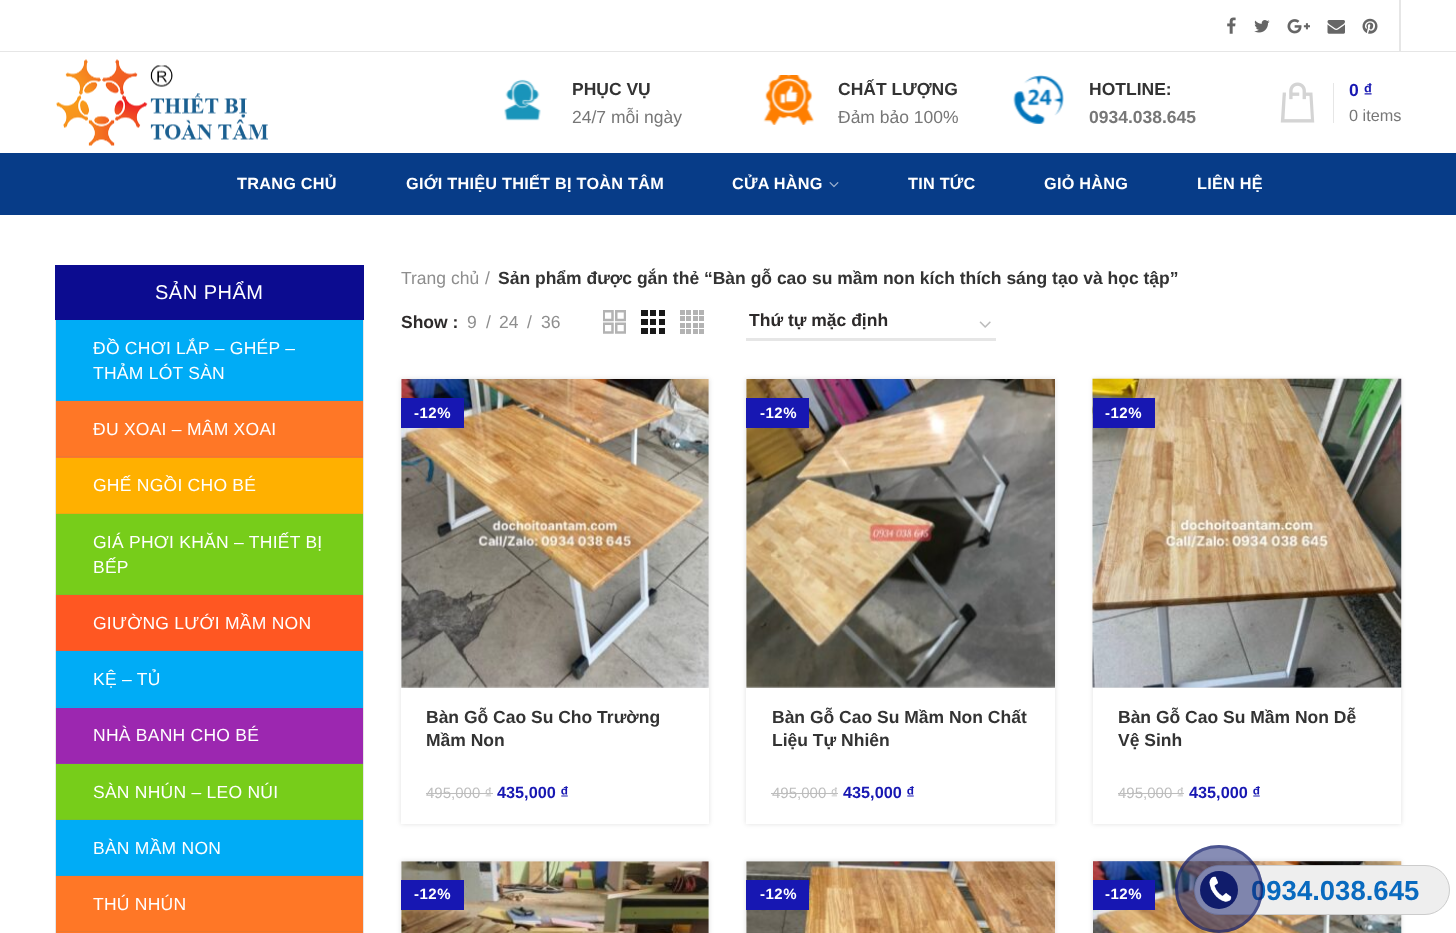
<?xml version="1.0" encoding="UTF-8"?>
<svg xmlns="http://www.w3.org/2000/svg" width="1456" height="933">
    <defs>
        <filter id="blur1" x="-50%" y="-200%" width="200%" height="500%"><feGaussianBlur stdDeviation="2.5"/></filter>
    </defs>
    <rect width="100%" height="100%" fill="#FFFFFF"/>
    <rect x="0" y="51" width="1456" height="1" fill="#E6E6E6"/>
    <image x="1227" y="17" width="9" height="17" href="img_01.png"/>
    <image x="1254" y="20" width="16" height="13" href="img_02.png"/>
    <image x="1287" y="19" width="23" height="15" href="img_03.png"/>
    <image x="1327" y="20" width="18" height="14" href="img_04.png"/>
    <image x="1362" y="18" width="16" height="16" href="img_05.png"/>
    <rect x="1399" y="0" width="2" height="51" fill="#E6E6E6"/>
    <image x="56" y="59" width="212" height="87" href="img_06.png"/>
    <image x="504" y="79" width="37" height="42" href="img_07.png"/>
    <text x="572" y="95" font-family="Liberation Sans" font-size="17.5" font-weight="700" fill="#333333">PHỤC VỤ</text>
    <text x="572" y="123" font-family="Liberation Sans" font-size="17.5" fill="#777777">24/7 mỗi ngày</text>
    <image x="763" y="75" width="51" height="50" href="img_08.png"/>
    <text x="838" y="95" font-family="Liberation Sans" font-size="17.5" font-weight="700" fill="#333333">CHẤT LƯỢNG</text>
    <text x="838" y="123" font-family="Liberation Sans" font-size="17.5" fill="#777777">Đảm bảo 100%</text>
    <image x="1013" y="75" width="51" height="50" href="img_09.png"/>
    <text x="1089" y="95" font-family="Liberation Sans" font-size="17.5" font-weight="700" fill="#333333">HOTLINE:</text>
    <text x="1089" y="123" font-family="Liberation Sans" font-size="17.5" font-weight="700" fill="#777777">0934.038.645</text>
    <rect x="1333" y="83" width="1" height="40" fill="#E6E6E6"/>
    <image x="1280" y="82" width="35" height="41" href="img_10.png"/>
    <text x="1349" y="96" font-family="Liberation Sans" font-size="17.5" font-weight="700" fill="#1717B2">0 ₫</text>
    <text x="1349" y="121" font-family="Liberation Sans" font-size="16.25" fill="#777777">0 items</text>
    <rect x="0" y="153" width="1456" height="62" fill="#073C88"/>
    <text x="237" y="189" font-family="Liberation Sans" font-size="16.25" font-weight="700" letter-spacing="0.25" fill="#FFFFFF">TRANG CHỦ</text>
    <text x="406" y="189" font-family="Liberation Sans" font-size="16.25" font-weight="700" letter-spacing="0.25" fill="#FFFFFF">GIỚI THIỆU THIẾT BỊ TOÀN TÂM</text>
    <text x="732" y="189" font-family="Liberation Sans" font-size="16.25" font-weight="700" letter-spacing="0.25" fill="#FFFFFF">CỬA HÀNG</text>
    <image x="829" y="182" width="10" height="6" href="img_11.png"/>
    <text x="908" y="189" font-family="Liberation Sans" font-size="16.25" font-weight="700" letter-spacing="0.25" fill="#FFFFFF">TIN TỨC</text>
    <text x="1044" y="189" font-family="Liberation Sans" font-size="16.25" font-weight="700" letter-spacing="0.25" fill="#FFFFFF">GIỎ HÀNG</text>
    <text x="1197" y="189" font-family="Liberation Sans" font-size="16.25" font-weight="700" letter-spacing="0.25" fill="#FFFFFF">LIÊN HỆ</text>
    <rect x="55" y="265" width="309" height="55" fill="#0C0C90"/>
    <text x="155" y="299" font-family="Liberation Sans" font-size="20" letter-spacing="0.5" fill="#FFFFFF">SẢN PHẨM</text>
    <path d="M 364 320 V 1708 L 362 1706 V 320 Z" fill="#E6E6E6"/>
    <path d="M 55 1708 V 320 H 56 V 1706 Z" fill="#E6E6E6"/>
    <rect x="56" y="320" width="307" height="80" fill="#00ACF6"/>
    <rect x="56" y="400" width="307" height="1" fill="#13A6E4"/>
    <text font-family="Liberation Sans" font-size="17.5" letter-spacing="0.25" fill="#FFFFFF">
        <tspan x="93" y="354">ĐỒ CHƠI LẮP – GHÉP –</tspan>
        <tspan x="93" y="379">THẢM LÓT SÀN</tspan>
    </text>
    <rect x="56" y="401" width="307" height="57" fill="#FF7726"/>
    <rect x="56" y="456" width="307" height="1" fill="#EC7934"/>
    <text x="93" y="435" font-family="Liberation Sans" font-size="17.5" letter-spacing="0.25" fill="#FFFFFF">ĐU XOAI – MÂM XOAI</text>
    <rect x="56" y="458" width="307" height="55" fill="#FFB000"/>
    <rect x="56" y="513" width="307" height="1" fill="#ECA913"/>
    <text x="93" y="491" font-family="Liberation Sans" font-size="17.5" letter-spacing="0.25" fill="#FFFFFF">GHẾ NGỒI CHO BÉ</text>
    <rect x="56" y="514" width="307" height="80" fill="#77CD1A"/>
    <rect x="56" y="594" width="307" height="1" fill="#79C229"/>
    <text font-family="Liberation Sans" font-size="17.5" letter-spacing="0.25" fill="#FFFFFF">
        <tspan x="93" y="548">GIÁ PHƠI KHĂN – THIẾT BỊ</tspan>
        <tspan x="93" y="573">BẾP</tspan>
    </text>
    <rect x="56" y="595" width="307" height="55" fill="#FF5722"/>
    <rect x="56" y="650" width="307" height="1" fill="#EC5D30"/>
    <text x="93" y="629" font-family="Liberation Sans" font-size="17.5" letter-spacing="0.25" fill="#FFFFFF">GIƯỜNG LƯỚI MẦM NON</text>
    <rect x="56" y="651" width="307" height="57" fill="#00ACF6"/>
    <rect x="56" y="706" width="307" height="1" fill="#13A6E4"/>
    <text x="93" y="685" font-family="Liberation Sans" font-size="17.5" letter-spacing="0.25" fill="#FFFFFF">KỆ – TỦ</text>
    <rect x="56" y="708" width="307" height="55" fill="#9C27B0"/>
    <rect x="56" y="763" width="307" height="1" fill="#9835A9"/>
    <text x="93" y="741" font-family="Liberation Sans" font-size="17.5" letter-spacing="0.25" fill="#FFFFFF">NHÀ BANH CHO BÉ</text>
    <rect x="56" y="764" width="307" height="55" fill="#77CD1A"/>
    <rect x="56" y="819" width="307" height="1" fill="#79C229"/>
    <text x="93" y="798" font-family="Liberation Sans" font-size="17.5" letter-spacing="0.25" fill="#FFFFFF">SÀN NHÚN – LEO NÚI</text>
    <rect x="56" y="820" width="307" height="55" fill="#00ACF6"/>
    <rect x="56" y="875" width="307" height="1" fill="#13A6E4"/>
    <text x="93" y="854" font-family="Liberation Sans" font-size="17.5" letter-spacing="0.25" fill="#FFFFFF">BÀN MẦM NON</text>
    <rect x="56" y="876" width="307" height="57" fill="#FF7726"/>
    <rect x="56" y="931" width="307" height="1" fill="#EC7934"/>
    <text x="93" y="910" font-family="Liberation Sans" font-size="17.5" letter-spacing="0.25" fill="#FFFFFF">THÚ NHÚN</text>
    <text x="401" y="284" font-family="Liberation Sans" font-size="17.5" fill="#8E8E8E">Trang chủ</text>
    <text x="485" y="284" font-family="Liberation Sans" font-size="17.5" fill="#8E8E8E">/</text>
    <text x="498" y="284" font-family="Liberation Sans" font-size="17.5" font-weight="700" fill="#333333">Sản phẩm được gắn thẻ “Bàn gỗ cao su mầm non kích thích sáng tạo và học tập”</text>
    <text x="401" y="328" font-family="Liberation Sans" font-size="17.5" font-weight="700" fill="#2D2A2A">Show :</text>
    <text x="467" y="328" font-family="Liberation Sans" font-size="17.5" fill="#8E8E8E">9</text>
    <text x="486" y="328" font-family="Liberation Sans" font-size="17.5" fill="#8E8E8E">/</text>
    <text x="499" y="328" font-family="Liberation Sans" font-size="17.5" fill="#8E8E8E">24</text>
    <text x="527" y="328" font-family="Liberation Sans" font-size="17.5" fill="#8E8E8E">/</text>
    <text x="541" y="328" font-family="Liberation Sans" font-size="17.5" fill="#8E8E8E">36</text>
    <image x="603" y="310" width="23" height="24" href="img_12.png"/>
    <image x="641" y="310" width="24" height="24" href="img_13.png"/>
    <image x="680" y="310" width="24" height="24" href="img_14.png"/>
    <rect x="746" y="338" width="250" height="3" fill="#E6E6E6"/>
    <text x="749" y="326" font-family="Liberation Sans" font-size="17.5" font-weight="700" fill="#2D2A2A">Thứ tự mặc định</text>
    <image x="979" y="321" width="12" height="7" href="img_15.png"/>
    <rect x="401" y="379" width="308" height="445" fill="#000000" fill-opacity="0.12" filter="url(#blur1)"/>
    <image x="401" y="379" width="308" height="309" href="img_16.png"/>
    <rect x="401" y="398" width="63" height="30" fill="#1717B2"/>
    <text x="414" y="418" font-family="Liberation Sans" font-size="15" font-weight="700" letter-spacing="0.5" fill="#FFFFFF">-12%</text>
    <rect x="401" y="688" width="308" height="136" fill="#FFFFFF"/>
    <text font-family="Liberation Sans" font-size="17.5" font-weight="700" fill="#333333">
        <tspan x="426" y="723">Bàn Gỗ Cao Su Cho Trường</tspan>
        <tspan x="426" y="746">Mầm Non</tspan>
    </text>
    <text x="426" y="798" font-family="Liberation Sans" font-size="15" fill="#BDBDBD">495,000 ₫</text>
    <rect x="426" y="793" width="67" height="1" fill="#BDBDBD"/>
    <text x="497" y="798" font-family="Liberation Sans" font-size="16.25" font-weight="700" fill="#1717B2">435,000 ₫</text>
    <rect x="746" y="379" width="309" height="445" fill="#000000" fill-opacity="0.12" filter="url(#blur1)"/>
    <image x="746" y="379" width="309" height="309" href="img_17.png"/>
    <rect x="746" y="398" width="63" height="30" fill="#1717B2"/>
    <text x="760" y="418" font-family="Liberation Sans" font-size="15" font-weight="700" letter-spacing="0.5" fill="#FFFFFF">-12%</text>
    <rect x="746" y="688" width="309" height="136" fill="#FFFFFF"/>
    <text font-family="Liberation Sans" font-size="17.5" font-weight="700" fill="#333333">
        <tspan x="772" y="723">Bàn Gỗ Cao Su Mầm Non Chất</tspan>
        <tspan x="772" y="746">Liệu Tự Nhiên</tspan>
    </text>
    <text x="772" y="798" font-family="Liberation Sans" font-size="15" fill="#BDBDBD">495,000 ₫</text>
    <rect x="771" y="793" width="67" height="1" fill="#BDBDBD"/>
    <text x="843" y="798" font-family="Liberation Sans" font-size="16.25" font-weight="700" fill="#1717B2">435,000 ₫</text>
    <rect x="1093" y="379" width="308" height="445" fill="#000000" fill-opacity="0.12" filter="url(#blur1)"/>
    <image x="1092" y="378" width="310" height="310" href="img_18.png"/>
    <rect x="1093" y="398" width="62" height="30" fill="#1717B2"/>
    <text x="1105" y="418" font-family="Liberation Sans" font-size="15" font-weight="700" letter-spacing="0.5" fill="#FFFFFF">-12%</text>
    <rect x="1093" y="688" width="308" height="136" fill="#FFFFFF"/>
    <text font-family="Liberation Sans" font-size="17.5" font-weight="700" fill="#333333">
        <tspan x="1118" y="723">Bàn Gỗ Cao Su Mầm Non Dễ</tspan>
        <tspan x="1118" y="746">Vệ Sinh</tspan>
    </text>
    <text x="1118" y="798" font-family="Liberation Sans" font-size="15" fill="#BDBDBD">495,000 ₫</text>
    <rect x="1118" y="793" width="66" height="1" fill="#BDBDBD"/>
    <text x="1189" y="798" font-family="Liberation Sans" font-size="16.25" font-weight="700" fill="#1717B2">435,000 ₫</text>
    <rect x="401" y="861" width="308" height="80" fill="#000000" fill-opacity="0.12" filter="url(#blur1)"/>
    <image x="401" y="861" width="308" height="72" href="img_19.png"/>
    <rect x="401" y="880" width="63" height="30" fill="#1717B2"/>
    <text x="414" y="899" font-family="Liberation Sans" font-size="15" font-weight="700" letter-spacing="0.5" fill="#FFFFFF">-12%</text>
    <rect x="746" y="861" width="309" height="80" fill="#000000" fill-opacity="0.12" filter="url(#blur1)"/>
    <image x="746" y="861" width="309" height="72" href="img_20.png"/>
    <rect x="746" y="880" width="63" height="30" fill="#1717B2"/>
    <text x="760" y="899" font-family="Liberation Sans" font-size="15" font-weight="700" letter-spacing="0.5" fill="#FFFFFF">-12%</text>
    <rect x="1093" y="861" width="308" height="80" fill="#000000" fill-opacity="0.12" filter="url(#blur1)"/>
    <image x="1093" y="861" width="309" height="72" href="img_21.png"/>
    <rect x="1093" y="880" width="62" height="30" fill="#1717B2"/>
    <text x="1105" y="899" font-family="Liberation Sans" font-size="15" font-weight="700" letter-spacing="0.5" fill="#FFFFFF">-12%</text>
    <rect x="1194.5" y="865.5" width="255" height="49" rx="24.5" fill="#EEEEEE" stroke="#CCCCCC"/>
    <text x="1251" y="900" font-family="Liberation Sans" font-size="27.5" font-weight="700" fill="#096ABF">0934.038.645</text>
    <circle cx="1219" cy="889" r="44" fill="#101C6B" fill-opacity="0.5"/>
    <circle cx="1219" cy="889" r="42.5" fill="none" stroke="#101C6B" stroke-opacity="0.5" stroke-width="3"/>
    <circle cx="1219" cy="890" r="19" fill="#101C6B"/>
    <image x="1209" y="876" width="23" height="26" href="img_22.png"/>
</svg>
